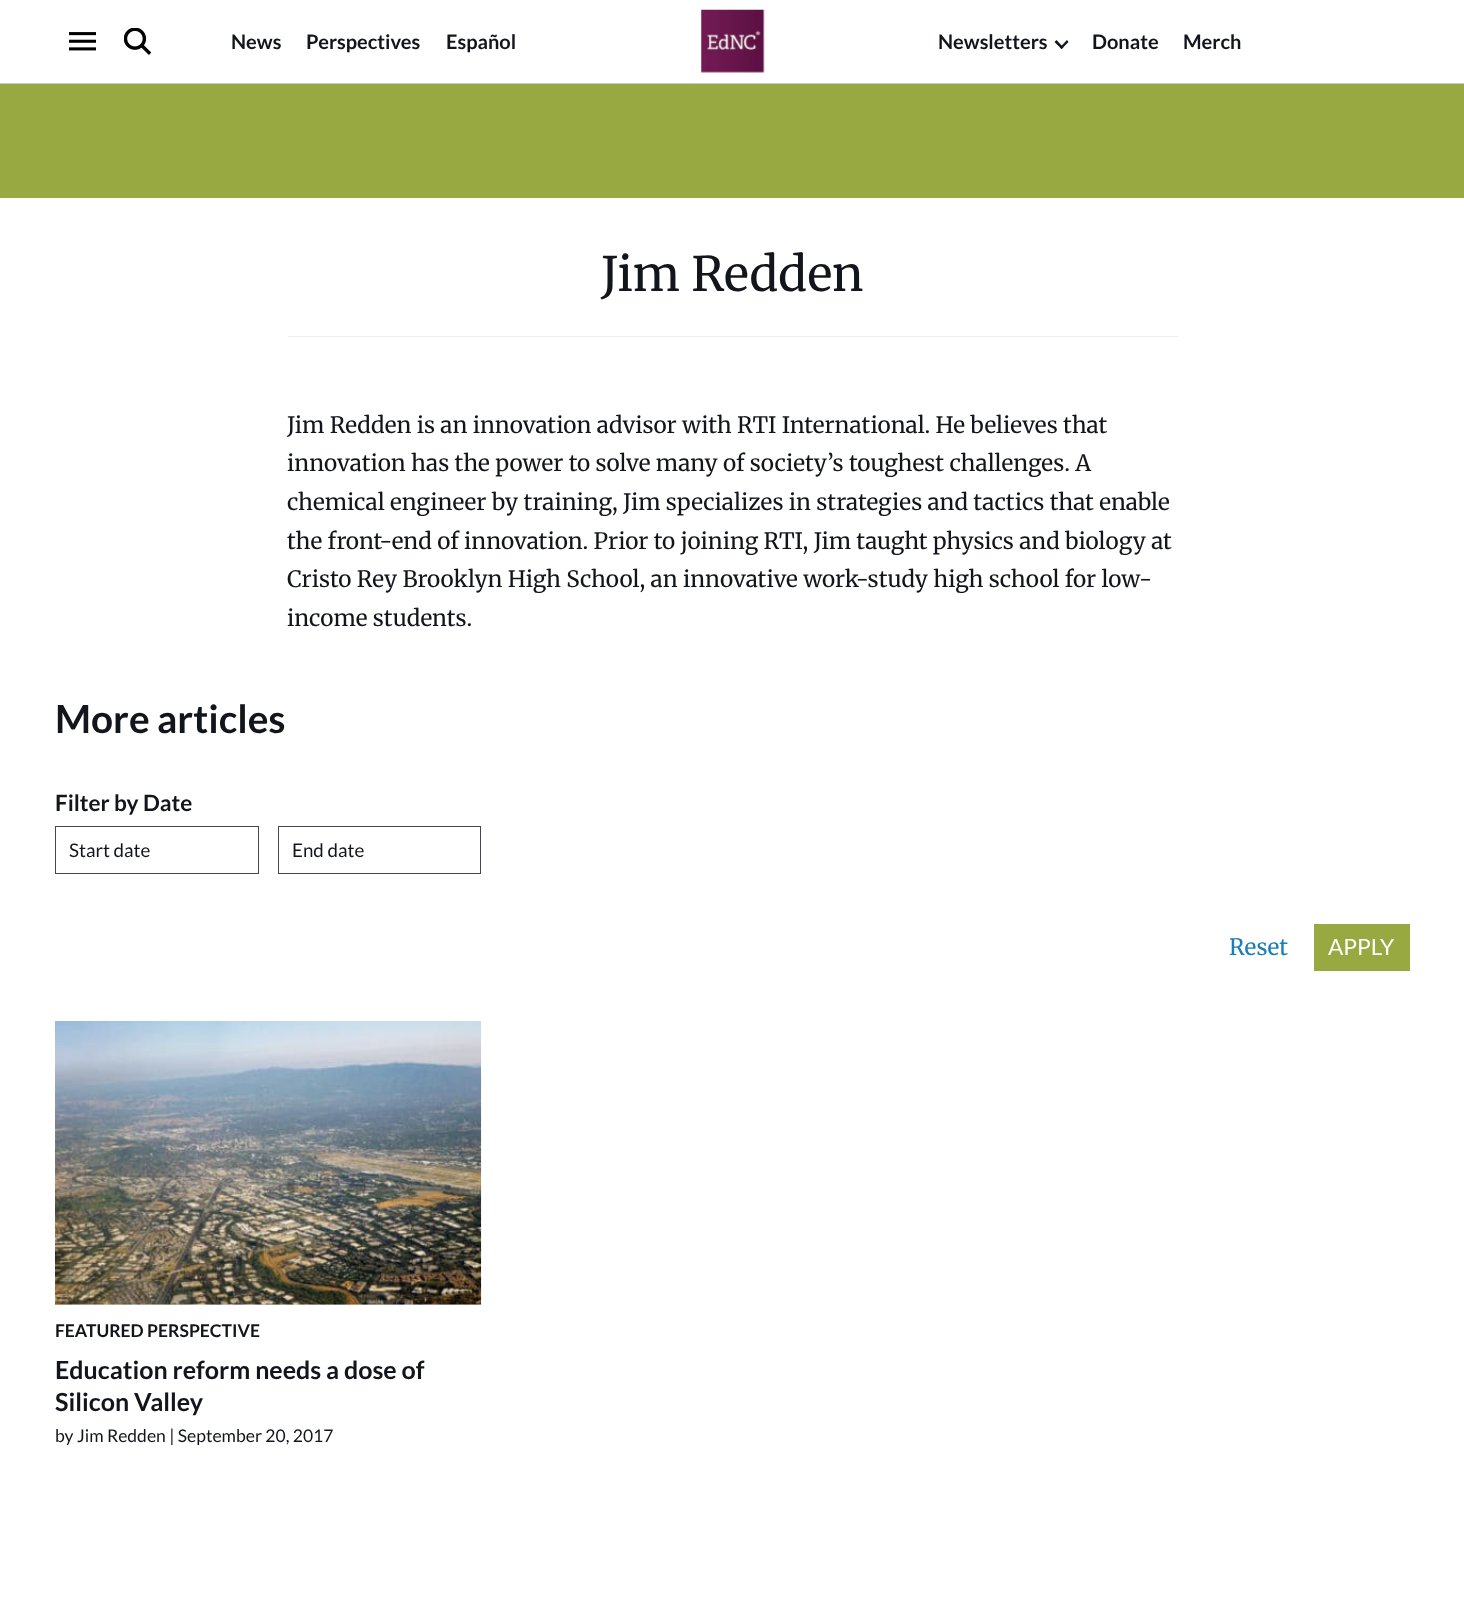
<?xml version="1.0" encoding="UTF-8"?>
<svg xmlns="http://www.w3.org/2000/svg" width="1464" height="1604">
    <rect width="100%" height="100%" fill="#FFFFFF"/>
    <rect x="0" y="83" width="1464" height="1" fill="#CCCCCC"/>
    <image x="701" y="9" width="64" height="64" href="img_01.png"/>
    <image x="69" y="32" width="27" height="19" href="img_02.png"/>
    <image x="124" y="28" width="27" height="27" href="img_03.png"/>
    <text x="231" y="49" font-family="Lato" font-size="20" font-weight="700" fill="#12151B">News</text>
    <text x="306" y="49" font-family="Lato" font-size="20" font-weight="700" fill="#12151B">Perspectives</text>
    <text x="446" y="49" font-family="Lato" font-size="20" font-weight="700" fill="#12151B">Español</text>
    <text x="938" y="49" font-family="Lato" font-size="20" font-weight="700" fill="#12151B">Newsletters</text>
    <path d="M 1061.5 49 L 1054.5 42 L 1056.5 40 L 1063.5 47.5 Z" fill="#12151B"/>
    <path d="M 1061.5 49 L 1060 47.5 L 1067 40 L 1068.5 42 Z" fill="#12151B"/>
    <text x="1092" y="49" font-family="Lato" font-size="20" font-weight="700" fill="#12151B">Donate</text>
    <text x="1183" y="49" font-family="Lato" font-size="20" font-weight="700" fill="#12151B">Merch</text>
    <rect x="0" y="84" width="1464" height="114" fill="#98A942"/>
    <text x="601" y="291" font-family="Merriweather" font-size="47.5" fill="#12151B">Jim Redden</text>
    <rect x="288" y="336" width="890" height="1" fill="#EEEEEE"/>
    <text font-family="Merriweather" font-size="22.5" fill="#12151B">
        <tspan x="287" y="433">Jim Redden is an innovation advisor with RTI International. He believes that</tspan>
        <tspan x="287" y="471">innovation has the power to solve many of society’s toughest challenges. A</tspan>
        <tspan x="287" y="510">chemical engineer by training, Jim specializes in strategies and tactics that enable</tspan>
        <tspan x="287" y="549">the front-end of innovation. Prior to joining RTI, Jim taught physics and biology at</tspan>
        <tspan x="287" y="587">Cristo Rey Brooklyn High School, an innovative work-study high school for low-</tspan>
        <tspan x="287" y="626">income students.</tspan>
    </text>
    <text x="55" y="733" font-family="Lato" font-size="38.75" font-weight="700" fill="#12151B">More articles</text>
    <text x="55" y="811" font-family="Lato" font-size="22.5" font-weight="700" fill="#12151B">Filter by Date</text>
    <rect x="55.5" y="826.5" width="203" height="47" fill="none" stroke="#44474D"/>
    <text x="69" y="857" font-family="Lato" font-size="18.75" fill="#12151B">Start date</text>
    <rect x="278.5" y="826.5" width="202" height="47" fill="none" stroke="#44474D"/>
    <text x="292" y="857" font-family="Lato" font-size="18.75" fill="#12151B">End date</text>
    <text x="1229" y="955" font-family="Merriweather" font-size="22.5" fill="#1C7DB7">Reset</text>
    <rect x="1314" y="924" width="96" height="47" fill="#98A942"/>
    <text x="1328" y="955" font-family="Lato" font-size="22.5" fill="#FFFFFF">APPLY</text>
    <rect x="55" y="1304" width="426" height="1" fill="#F2F2F2"/>
    <image x="55" y="1021" width="427" height="284" href="img_04.png"/>
    <text x="55" y="1337" font-family="Lato" font-size="17.5" font-weight="700" fill="#12151B">FEATURED PERSPECTIVE</text>
    <text font-family="Lato" font-size="25" font-weight="700" fill="#12151B">
        <tspan x="55" y="1379">Education reform needs a dose of</tspan>
        <tspan x="55" y="1411">Silicon Valley</tspan>
    </text>
    <text x="55" y="1442" font-family="Lato" font-size="17.5" fill="#12151B">by Jim Redden | September 20, 2017</text>
</svg>
